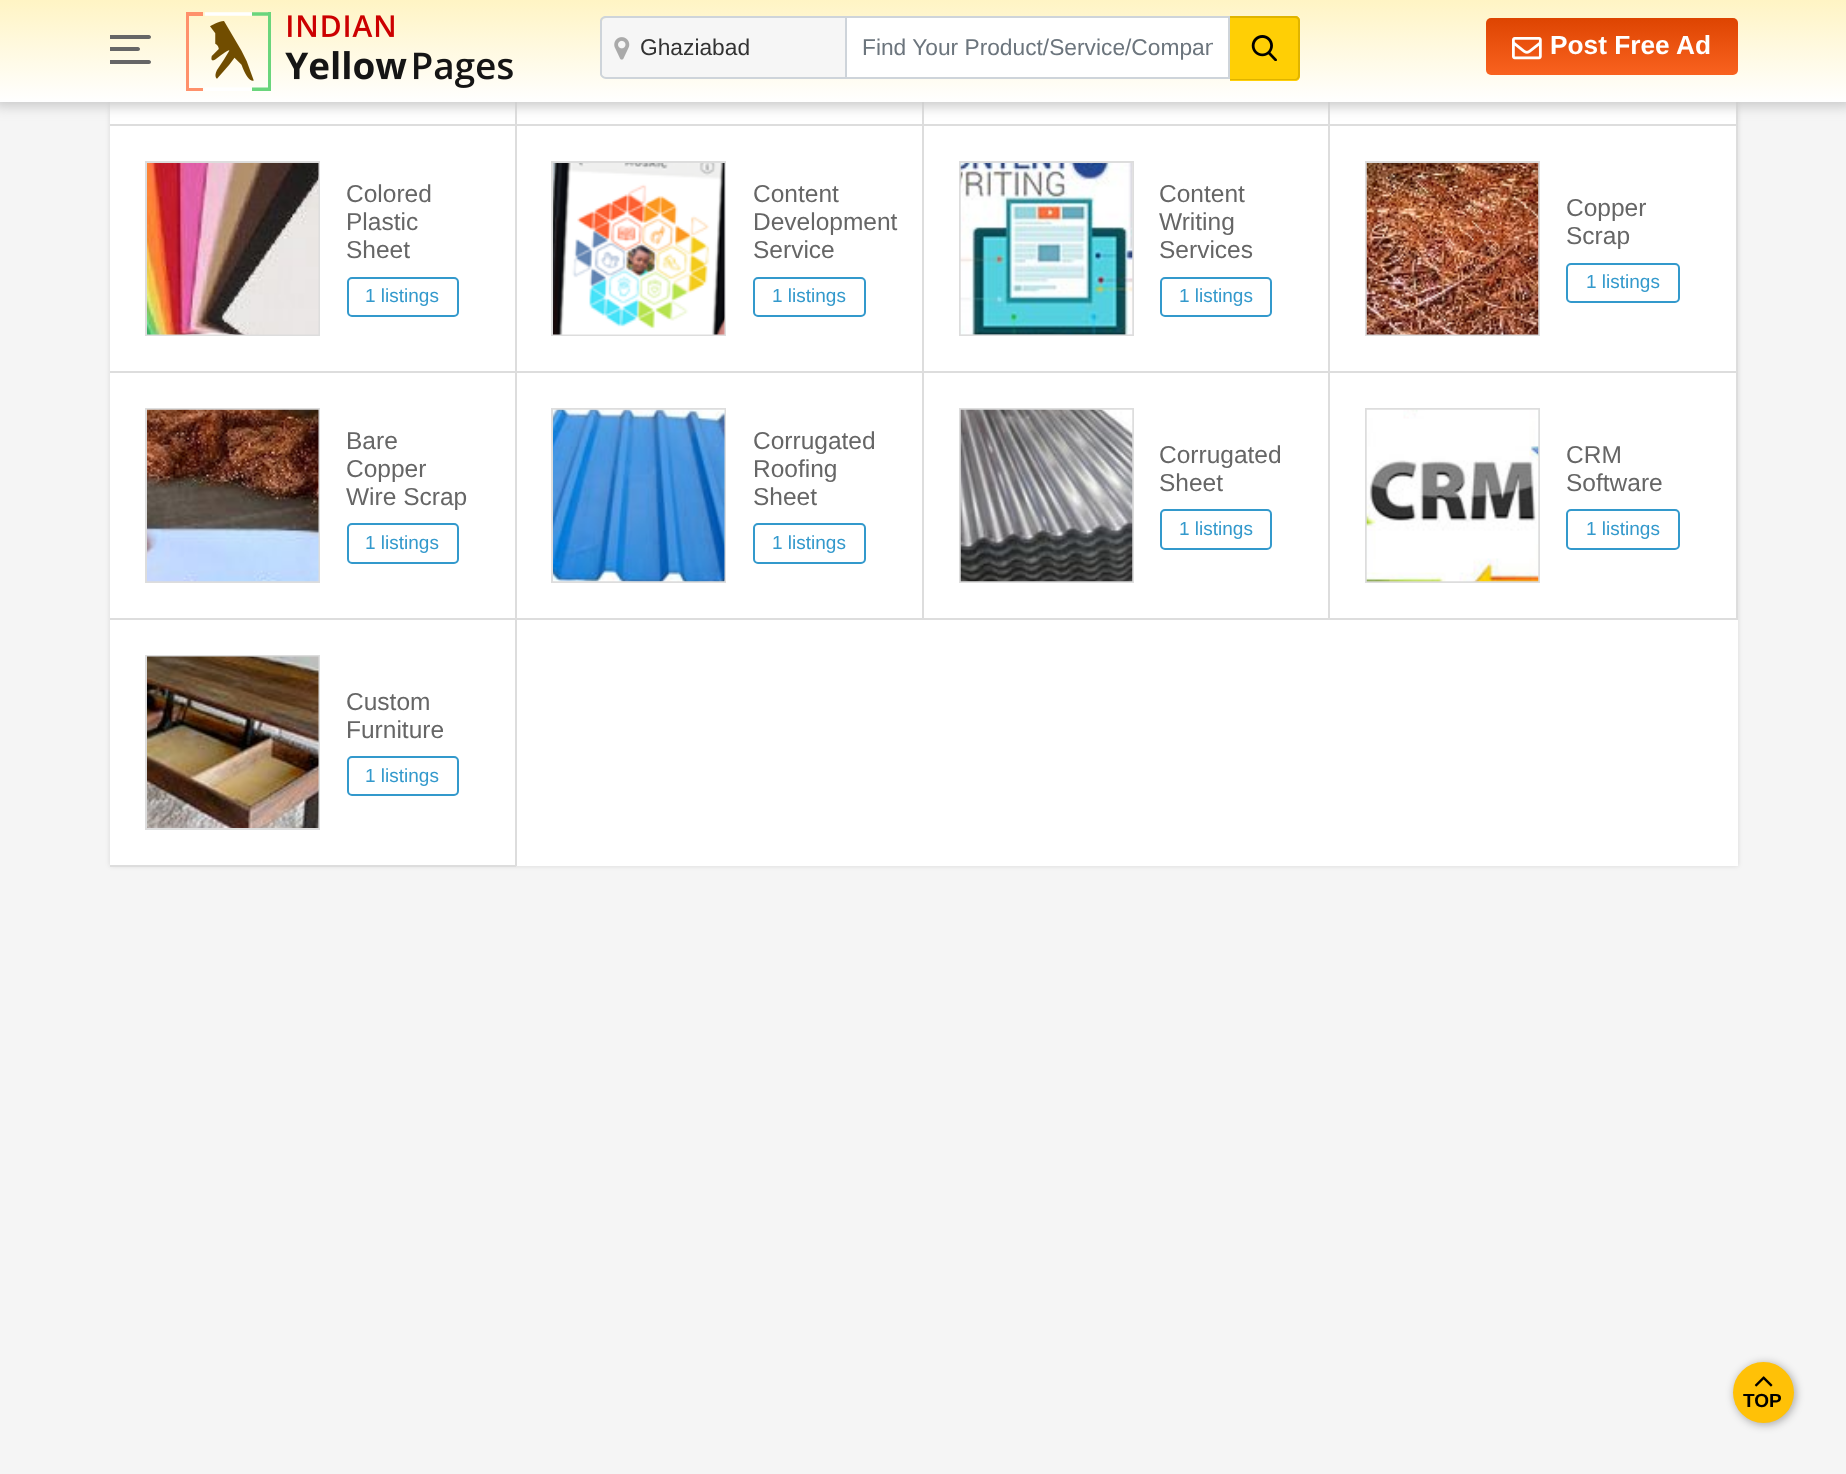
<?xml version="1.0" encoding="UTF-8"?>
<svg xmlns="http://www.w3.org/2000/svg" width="1846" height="1474">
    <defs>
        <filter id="blur1" x="-50%" y="-200%" width="200%" height="500%"><feGaussianBlur stdDeviation="2.5"/></filter>
        <filter id="blur2" x="-50%" y="-200%" width="200%" height="500%"><feGaussianBlur stdDeviation="6"/></filter>
        <linearGradient id="g1" gradientUnits="userSpaceOnUse" x1="923" y1="0" x2="923" y2="102"><stop offset="0" stop-color="#FFF4C4"/><stop offset="1" stop-color="#FFFFFF"/></linearGradient>
        <clipPath id="clip1"><rect x="863" y="35" width="350" height="26"/></clipPath>
        <linearGradient id="g2" gradientUnits="userSpaceOnUse" x1="1612" y1="17" x2="1612" y2="75"><stop offset="0" stop-color="#DD4401"/><stop offset="1" stop-color="#F9621F"/></linearGradient>
        <filter id="blur3" x="-50%" y="-200%" width="200%" height="500%"><feGaussianBlur stdDeviation="4.5"/></filter>
    </defs>
    <rect width="100%" height="100%" fill="#F5F5F5"/>
    <rect x="110" y="-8" width="1628" height="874" fill="#000000" fill-opacity="0.12" filter="url(#blur1)"/>
    <rect x="110" y="102" width="1628" height="764" fill="#FFFFFF"/>
    <rect x="515" y="102" width="2" height="764" fill="#DDDDDD"/>
    <rect x="110" y="124" width="406" height="2" fill="#DDDDDD"/>
    <rect x="922" y="102" width="2" height="518" fill="#DDDDDD"/>
    <rect x="516" y="124" width="408" height="2" fill="#DDDDDD"/>
    <rect x="1328" y="102" width="2" height="518" fill="#DDDDDD"/>
    <rect x="924" y="124" width="406" height="2" fill="#DDDDDD"/>
    <rect x="1736" y="102" width="2" height="518" fill="#DDDDDD"/>
    <rect x="1330" y="124" width="408" height="2" fill="#DDDDDD"/>
    <rect x="-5" y="-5" width="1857" height="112" fill="#CCCCCC" filter="url(#blur2)"/>
    <rect x="0" y="0" width="1846" height="102" fill="url(#g1)"/>
    <path d="M 110 35 H 149 C 150 35 151 36 151 37 C 151 38 150 39 149 39 H 110 Z" fill="#666666"/>
    <path d="M 110 47 H 138 C 139 47 140 48 140 49 C 140 50 139 51 138 51 H 110 Z" fill="#666666"/>
    <path d="M 110 60 H 149 C 150 60 151 61 151 62 C 151 63 150 64 149 64 H 110 Z" fill="#666666"/>
    <image x="186" y="12" width="85" height="79" href="img_01.png"/>
    <image x="285" y="15" width="228" height="73" href="img_02.png"/>
    <path d="M 606 18 H 845 V 77 H 606 C 604 77 602 75 602 73 V 22 C 602 20 604 18 606 18 Z" fill="#F6F6F6"/>
    <path d="M 606 16 H 845 V 79 H 606 C 603 79 600 76 600 74 V 21 C 600 18 603 16 606 16 Z M 606 18 H 845 V 77 H 606 C 604 77 602 75 602 74 V 21 C 602 19 604 18 606 18 Z" fill="#CED4DA" fill-rule="evenodd"/>
    <image x="614" y="37" width="16" height="23" href="img_03.png"/>
    <text x="640" y="55" font-family="Liberation Sans" font-size="22.75" fill="#333333">Ghaziabad</text>
    <rect x="846" y="17" width="383" height="61" fill="#FFFFFF" stroke="#CED4DA" stroke-width="2"/>
    <g clip-path="url(#clip1)">
        <text x="862" y="55" font-family="Liberation Sans" font-size="22.75" fill="#6C757D">Find Your Product/Service/Compan</text>
    </g>
    <path d="M 1230 16 H 1295 C 1298 16 1300 18 1300 21 V 76 C 1300 79 1298 81 1295 81 H 1230 Z" fill="#FFCF05"/>
    <path d="M 1230 16 H 1295 C 1298 16 1300 18 1300 21 V 75 C 1300 78 1298 80 1295 80 H 1230 Z M 1230 18 H 1295 C 1297 18 1298 19 1298 21 V 75 C 1298 77 1297 79 1295 79 H 1230 Z" fill="#DFB400" fill-rule="evenodd"/>
    <image x="1251" y="35" width="26" height="26" href="img_04.png"/>
    <rect x="1486" y="18" width="252" height="57" rx="5" fill="url(#g2)"/>
    <image x="1512" y="37" width="30" height="23" href="img_05.png"/>
    <text x="1550" y="54" font-family="Liberation Sans" font-size="26.25" font-weight="700" fill="#FFFFFF">Post Free Ad</text>
    <rect x="110" y="371" width="1628" height="2" fill="#DDDDDD"/>
    <rect x="146" y="162" width="173" height="173" fill="none" stroke="#DDDDDD" stroke-width="2"/>
    <image x="147" y="163" width="172" height="172" href="img_06.png"/>
    <text font-family="Liberation Sans" font-size="24.5" fill="#666666">
        <tspan x="346" y="202">Colored</tspan>
        <tspan x="346" y="230">Plastic</tspan>
        <tspan x="346" y="258">Sheet</tspan>
    </text>
    <rect x="348" y="278" width="110" height="38" rx="4" fill="none" stroke="#3399CC" stroke-width="2"/>
    <text x="365" y="302" font-family="Liberation Sans" font-size="19" fill="#3399CC">1 listings</text>
    <rect x="552" y="162" width="173" height="173" fill="none" stroke="#DDDDDD" stroke-width="2"/>
    <image x="553" y="163" width="172" height="172" href="img_07.png"/>
    <text font-family="Liberation Sans" font-size="24.5" fill="#666666">
        <tspan x="753" y="202">Content</tspan>
        <tspan x="753" y="230">Development</tspan>
        <tspan x="753" y="258">Service</tspan>
    </text>
    <rect x="754" y="278" width="111" height="38" rx="4" fill="none" stroke="#3399CC" stroke-width="2"/>
    <text x="772" y="302" font-family="Liberation Sans" font-size="19" fill="#3399CC">1 listings</text>
    <rect x="960" y="162" width="173" height="173" fill="none" stroke="#DDDDDD" stroke-width="2"/>
    <image x="960" y="163" width="173" height="172" href="img_08.png"/>
    <text font-family="Liberation Sans" font-size="24.5" fill="#666666">
        <tspan x="1159" y="202">Content</tspan>
        <tspan x="1159" y="230">Writing</tspan>
        <tspan x="1159" y="258">Services</tspan>
    </text>
    <rect x="1161" y="278" width="110" height="38" rx="4" fill="none" stroke="#3399CC" stroke-width="2"/>
    <text x="1179" y="302" font-family="Liberation Sans" font-size="19" fill="#3399CC">1 listings</text>
    <rect x="1366" y="162" width="173" height="173" fill="none" stroke="#DDDDDD" stroke-width="2"/>
    <image x="1366" y="163" width="173" height="172" href="img_09.png"/>
    <text font-family="Liberation Sans" font-size="24.5" fill="#666666">
        <tspan x="1566" y="216">Copper</tspan>
        <tspan x="1566" y="244">Scrap</tspan>
    </text>
    <rect x="1567" y="264" width="112" height="38" rx="4" fill="none" stroke="#3399CC" stroke-width="2"/>
    <text x="1586" y="288" font-family="Liberation Sans" font-size="19" fill="#3399CC">1 listings</text>
    <rect x="110" y="618" width="1628" height="2" fill="#DDDDDD"/>
    <rect x="146" y="409" width="173" height="173" fill="none" stroke="#DDDDDD" stroke-width="2"/>
    <image x="147" y="409" width="172" height="173" href="img_10.png"/>
    <text font-family="Liberation Sans" font-size="24.5" fill="#666666">
        <tspan x="346" y="449">Bare</tspan>
        <tspan x="346" y="477">Copper</tspan>
        <tspan x="346" y="505">Wire Scrap</tspan>
    </text>
    <rect x="348" y="524" width="110" height="39" rx="4" fill="none" stroke="#3399CC" stroke-width="2"/>
    <text x="365" y="549" font-family="Liberation Sans" font-size="19" fill="#3399CC">1 listings</text>
    <rect x="552" y="409" width="173" height="173" fill="none" stroke="#DDDDDD" stroke-width="2"/>
    <image x="553" y="409" width="172" height="173" href="img_11.png"/>
    <text font-family="Liberation Sans" font-size="24.5" fill="#666666">
        <tspan x="753" y="449">Corrugated</tspan>
        <tspan x="753" y="477">Roofing</tspan>
        <tspan x="753" y="505">Sheet</tspan>
    </text>
    <rect x="754" y="524" width="111" height="39" rx="4" fill="none" stroke="#3399CC" stroke-width="2"/>
    <text x="772" y="549" font-family="Liberation Sans" font-size="19" fill="#3399CC">1 listings</text>
    <rect x="960" y="409" width="173" height="173" fill="none" stroke="#DDDDDD" stroke-width="2"/>
    <image x="960" y="409" width="173" height="173" href="img_12.png"/>
    <text font-family="Liberation Sans" font-size="24.5" fill="#666666">
        <tspan x="1159" y="463">Corrugated</tspan>
        <tspan x="1159" y="491">Sheet</tspan>
    </text>
    <rect x="1161" y="510" width="110" height="39" rx="4" fill="none" stroke="#3399CC" stroke-width="2"/>
    <text x="1179" y="535" font-family="Liberation Sans" font-size="19" fill="#3399CC">1 listings</text>
    <rect x="1366" y="409" width="173" height="173" fill="none" stroke="#DDDDDD" stroke-width="2"/>
    <image x="1366" y="409" width="173" height="173" href="img_13.png"/>
    <text font-family="Liberation Sans" font-size="24.5" fill="#666666">
        <tspan x="1566" y="463">CRM</tspan>
        <tspan x="1566" y="491">Software</tspan>
    </text>
    <rect x="1567" y="510" width="112" height="39" rx="4" fill="none" stroke="#3399CC" stroke-width="2"/>
    <text x="1586" y="535" font-family="Liberation Sans" font-size="19" fill="#3399CC">1 listings</text>
    <rect x="110" y="865" width="406" height="2" fill="#DDDDDD"/>
    <rect x="146" y="656" width="173" height="173" fill="none" stroke="#DDDDDD" stroke-width="2"/>
    <image x="147" y="656" width="172" height="172" href="img_14.png"/>
    <text font-family="Liberation Sans" font-size="24.5" fill="#666666">
        <tspan x="346" y="710">Custom</tspan>
        <tspan x="346" y="738">Furniture</tspan>
    </text>
    <rect x="348" y="757" width="110" height="38" rx="4" fill="none" stroke="#3399CC" stroke-width="2"/>
    <text x="365" y="782" font-family="Liberation Sans" font-size="19" fill="#3399CC">1 listings</text>
    <rect x="1734" y="1363" width="62" height="62" rx="31" fill="#000000" fill-opacity="0.3" filter="url(#blur3)"/>
    <circle cx="1763.5" cy="1392.5" r="30.5" fill="#FFC107"/>
    <image x="1754" y="1376" width="19" height="11" href="img_15.png"/>
    <text x="1743" y="1407" font-family="Liberation Sans" font-size="19" font-weight="700" fill="#000000">TOP</text>
</svg>
